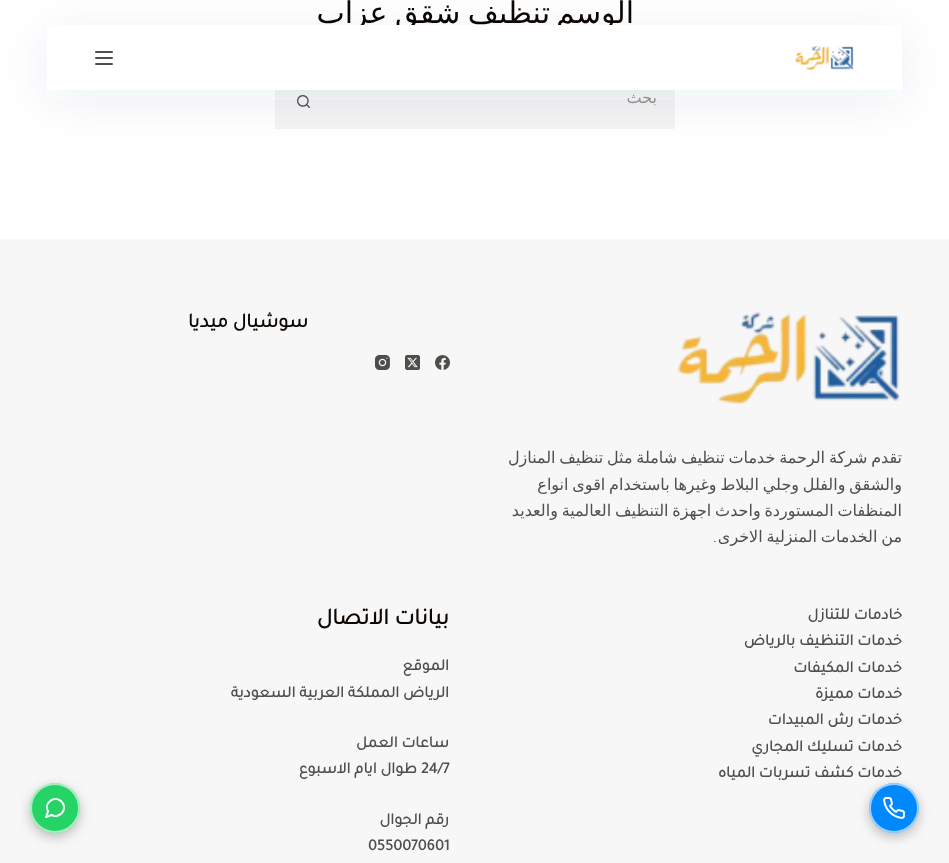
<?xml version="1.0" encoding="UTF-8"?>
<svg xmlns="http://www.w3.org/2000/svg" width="949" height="863">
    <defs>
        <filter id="blur1" x="-50%" y="-200%" width="200%" height="500%"><feGaussianBlur stdDeviation="25"/></filter>
        <filter id="blur2" x="-50%" y="-200%" width="200%" height="500%"><feGaussianBlur stdDeviation="6"/></filter>
    </defs>
    <rect width="100%" height="100%" fill="#FFFFFF"/>
    <rect x="275" y="90" width="400" height="39" fill="#F4F4F4"/>
    <image x="297" y="95" width="13" height="13" href="img_02.png"/>
    <rect x="47" y="35" width="855" height="65" fill="#2C3E50" fill-opacity="0.07" filter="url(#blur1)"/>
    <text x="634" y="23" font-family="DejaVu Sans" font-size="30" direction="rtl" fill="#0A0500">الوسم</text>
    <text x="550" y="23" word-spacing="-2" font-family="DejaVu Sans" font-size="30" direction="rtl" fill="#0A0500">تنظيف شقق عزاب</text>
    <rect x="47" y="25" width="855" height="65" fill="#FFFFFF"/>
    <image x="795" y="46" width="59" height="24" href="img_01.png"/>
    <rect x="95" y="51" width="18" height="2" rx="1" fill="#504E4A"/>
    <rect x="95" y="57" width="18" height="2" rx="1" fill="#504E4A"/>
    <rect x="95" y="63" width="18" height="2" rx="1" fill="#504E4A"/>
    <text x="657" y="103" font-family="DejaVu Sans" font-size="16" direction="rtl" fill="#92908E">بحث</text>
    <rect x="0" y="239" width="949" height="624" fill="#F7F7F7"/>
    <text x="308" y="327" font-family="Tajawal" font-size="20" font-weight="700" direction="rtl" fill="#0A0500">سوشيال ميديا</text>
    <image x="435" y="355" width="15" height="15" href="img_03.png"/>
    <image x="405" y="355" width="15" height="15" href="img_04.png"/>
    <image x="375" y="355" width="15" height="15" href="img_05.png"/>
    <image x="677" y="312" width="224" height="92" href="img_06.png"/>
    <text font-family="DejaVu Sans" font-size="16" direction="rtl" fill="#504E4A">
        <tspan x="902" y="463" word-spacing="-1.25">تقدم شركة الرحمة خدمات تنظيف شاملة مثل تنظيف المنازل</tspan>
        <tspan x="902" y="490" word-spacing="-1.25">والشقق والفلل وجلي البلاط وغيرها باستخدام اقوى انواع</tspan>
        <tspan x="902" y="516" word-spacing="-1.25">المنظفات المستوردة واحدث اجهزة التنظيف العالمية والعديد</tspan>
        <tspan x="902" y="542" word-spacing="-1.25">من الخدمات المنزلية الاخرى</tspan>
    </text>
    <text x="717" y="542" font-family="Tajawal" font-size="16" direction="rtl" fill="#504E4A">.</text>
    <text font-family="Tajawal" font-size="16" font-weight="700" direction="rtl" fill="#504E4A">
        <tspan x="902" y="619">خادمات للتنازل</tspan>
        <tspan x="902" y="645">خدمات التنظيف بالرياض</tspan>
        <tspan x="902" y="672">خدمات المكيفات</tspan>
        <tspan x="902" y="698">خدمات مميزة</tspan>
        <tspan x="902" y="724">خدمات رش المبيدات</tspan>
        <tspan x="902" y="751">خدمات تسليك المجاري</tspan>
        <tspan x="902" y="777">خدمات كشف تسربات المياه</tspan>
    </text>
    <text x="449" y="624" font-family="Tajawal" font-size="23" font-weight="700" direction="rtl" fill="#0A0500">بيانات الاتصال</text>
    <text font-family="Tajawal" font-size="16" font-weight="700" direction="rtl" fill="#504E4A">
        <tspan x="449" y="670">الموقع</tspan>
        <tspan x="449" y="697">الرياض المملكة العربية السعودية</tspan>
    </text>
    <text x="449" y="747" font-family="Tajawal" font-size="16" font-weight="700" direction="rtl" fill="#504E4A">ساعات العمل</text>
    <text x="421" y="773" font-family="Tajawal" font-size="16" font-weight="700" fill="#504E4A">24/7</text>
    <text x="417" y="773" font-family="Tajawal" font-size="16" font-weight="700" direction="rtl" fill="#504E4A">طوال ايام الاسبوع</text>
    <text x="449" y="824" font-family="Tajawal" font-size="16" font-weight="700" direction="rtl" fill="#504E4A">رقم الجوال</text>
    <text x="368" y="850" font-family="'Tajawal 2'" font-size="16" font-weight="700" fill="#504E4A">0550070601</text>
    <rect x="869" y="787" width="50" height="50" rx="25" fill="#000000" fill-opacity="0.25" filter="url(#blur2)"/>
    <circle cx="894" cy="808" r="25" fill="#0088FF"/>
    <circle cx="894" cy="808" r="24" fill="none" stroke="#FFFFFF" stroke-opacity="0.6" stroke-width="2"/>
    <image x="883" y="797" width="22" height="22" href="img_07.png"/>
    <rect x="30" y="787" width="50" height="50" rx="25" fill="#000000" fill-opacity="0.25" filter="url(#blur2)"/>
    <circle cx="55" cy="808" r="25" fill="#25D366"/>
    <circle cx="55" cy="808" r="24" fill="none" stroke="#FFFFFF" stroke-opacity="0.6" stroke-width="2"/>
    <path d="M 64 807.5 C 64 813.5 57 818 51.5 815 L 46 817 L 48 811.5 C 43.5 803 54.5 794.5 61.5 801.5 C 63 803 64 805 64 807.5 Z" fill="none" stroke="#FFFFFF" stroke-width="2" stroke-linecap="round" stroke-linejoin="round"/>
</svg>
